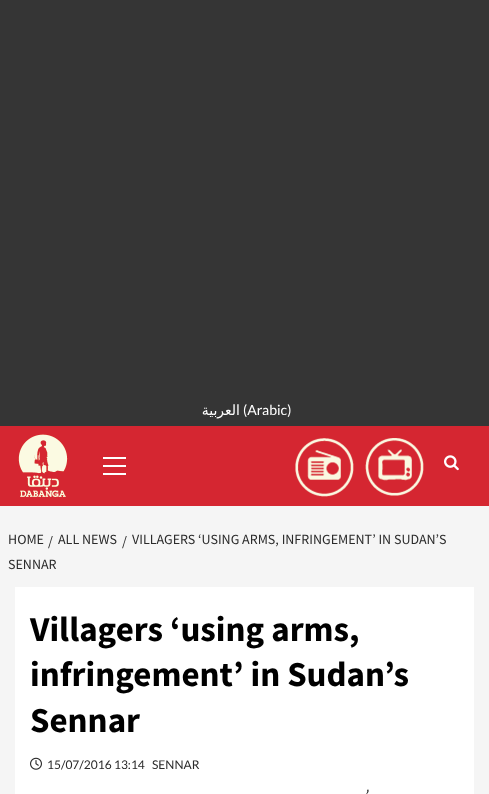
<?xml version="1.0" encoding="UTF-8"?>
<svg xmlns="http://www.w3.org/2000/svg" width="489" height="794">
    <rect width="100%" height="100%" fill="#F5F5F5"/>
    <rect x="0" y="0" width="489" height="426" fill="#353535"/>
    <text x="240" y="415" font-family="DejaVu Sans" font-size="14" direction="rtl" fill="#FFFFFF">العربية</text>
    <text x="243" y="415" font-family="Lato" font-size="14" fill="#FFFFFF">(Arabic)</text>
    <rect x="0" y="426" width="489" height="80" fill="#D52631"/>
    <image x="18" y="434" width="50" height="63" href="img_01.png"/>
    <rect x="103" y="465" width="23" height="2" fill="#FFFFFF"/>
    <rect x="103" y="457" width="23" height="2" fill="#FFFFFF"/>
    <rect x="103" y="473" width="23" height="2" fill="#FFFFFF"/>
    <image x="295" y="438" width="59" height="59" href="img_02.png"/>
    <image x="365" y="438" width="59" height="58" href="img_03.png"/>
    <image x="444" y="455" width="15" height="16" href="img_04.png"/>
    <text x="8" y="544" font-family="Source Sans Pro" font-size="14" fill="#2A2A2A">HOME</text>
    <text x="122" y="546" font-family="Source Sans Pro" font-size="14" fill="#2A2A2A">/</text>
    <text x="132" y="544" font-family="Source Sans Pro" font-size="14" fill="#2A2A2A">VILLAGERS ‘USING ARMS, INFRINGEMENT’ IN SUDAN’S</text>
    <text x="8" y="569" font-family="Source Sans Pro" font-size="14" fill="#2A2A2A">SENNAR</text>
    <text x="48" y="546" font-family="Source Sans Pro" font-size="14" fill="#2A2A2A">/</text>
    <text x="58" y="544" font-family="Source Sans Pro" font-size="14" fill="#2A2A2A">ALL NEWS</text>
    <rect x="15" y="587" width="459" height="207" fill="#FFFFFF"/>
    <text font-family="Source Sans Pro" font-size="35" font-weight="700" fill="#000000">
        <tspan x="30" y="641">Villagers ‘using arms,</tspan>
        <tspan x="30" y="686">infringement’ in Sudan’s</tspan>
        <tspan x="30" y="732">Sennar</tspan>
    </text>
    <image x="30" y="757" width="12" height="13" href="img_05.png"/>
    <text x="47" y="769" font-family="Lato" font-size="12" fill="#2A2A2A">15/07/2016 13:14</text>
    <text x="152" y="769" font-family="Lato" font-size="12" fill="#2A2A2A">SENNAR</text>
    <text x="365" y="803" font-family="Lato" font-size="18" font-style="italic" fill="#2A2A2A">’</text>
</svg>
